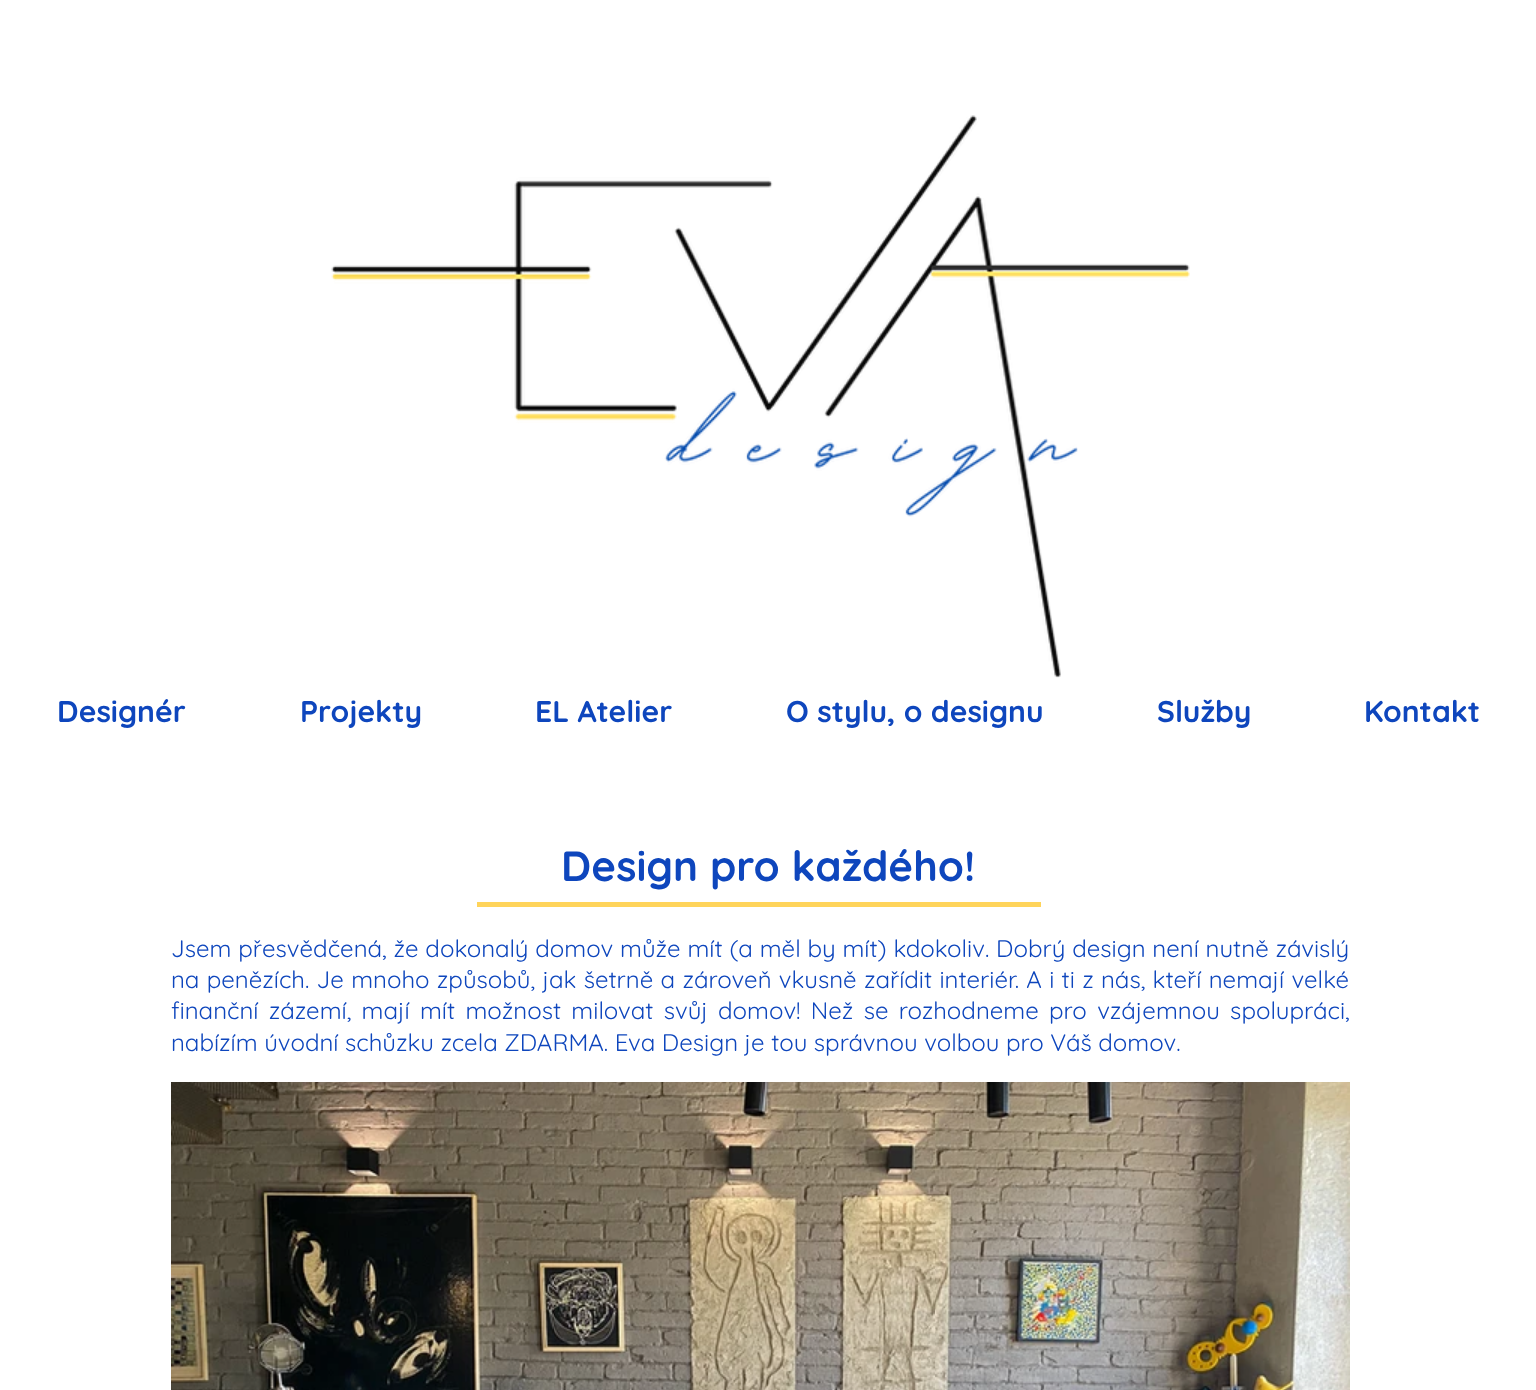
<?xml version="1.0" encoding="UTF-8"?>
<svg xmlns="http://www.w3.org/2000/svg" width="1536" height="1390">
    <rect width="100%" height="100%" fill="#FFFFFF"/>
    <image x="331" y="115" width="859" height="563" href="img_01.png"/>
    <text x="57" y="722" font-family="Quicksand" font-size="30" font-weight="700" fill="#0E46BD">Designér</text>
    <text x="300" y="722" font-family="Quicksand" font-size="30" font-weight="700" fill="#0E46BD">Projekty</text>
    <text x="535" y="722" font-family="Quicksand" font-size="30" font-weight="700" fill="#0E46BD">EL Atelier</text>
    <text x="786" y="722" font-family="Quicksand" font-size="30" font-weight="700" fill="#0E46BD">O stylu, o designu</text>
    <text x="1157" y="722" font-family="Quicksand" font-size="30" font-weight="700" fill="#0E46BD">Služby</text>
    <text x="1364" y="722" font-family="Quicksand" font-size="30" font-weight="700" fill="#0E46BD">Kontakt</text>
    <text x="561" y="881" font-family="Quicksand" font-size="42" font-weight="700" fill="#0E46BD">Design pro každého!</text>
    <rect x="477" y="902" width="564" height="5" fill="#FFD45A"/>
    <text font-family="Quicksand" font-size="24" fill="#0E46BD">
        <tspan x="171" y="957" word-spacing="0.25">Jsem přesvědčená, že dokonalý domov může mít (a měl by mít) kdokoliv. Dobrý design není nutně závislý</tspan>
        <tspan x="171" y="988" word-spacing="0.75">na penězích. Je mnoho způsobů, jak šetrně a zároveň vkusně zařídit interiér. A i ti z nás, kteří nemají velké</tspan>
        <tspan x="171" y="1019" word-spacing="3.75">finanční zázemí, mají mít možnost milovat svůj domov! Než se rozhodneme pro vzájemnou spolupráci,</tspan>
        <tspan x="171" y="1051">nabízím úvodní schůzku zcela ZDARMA. Eva Design je tou správnou volbou pro Váš domov.</tspan>
    </text>
    <image x="171" y="1082" width="1179" height="308" href="img_02.png"/>
</svg>
